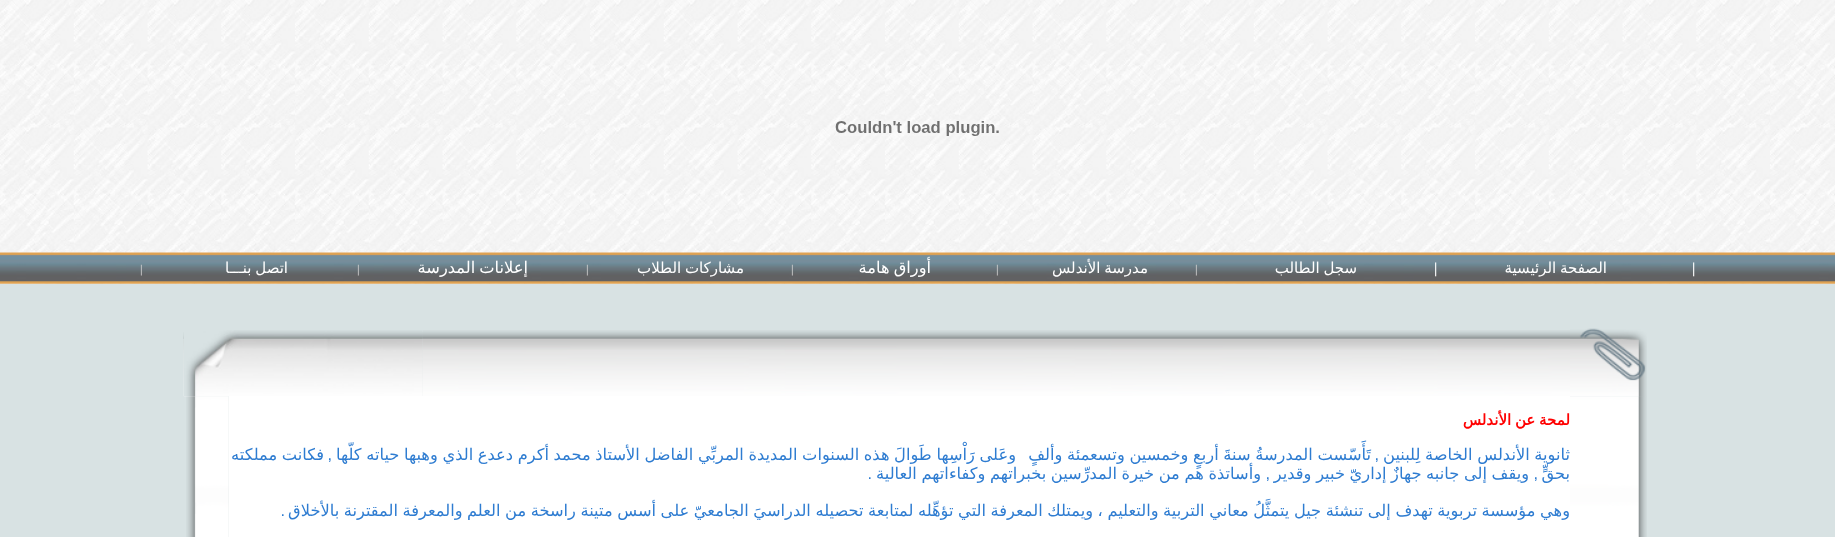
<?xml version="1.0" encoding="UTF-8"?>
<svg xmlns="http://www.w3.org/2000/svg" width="1835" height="537">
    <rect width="100%" height="100%" fill="#FFFFFF"/>
    <image x="0" y="0" width="1835" height="284" href="img_01.png"/>
    <image x="835" y="121" width="164" height="15" href="img_02.png"/>
    <image x="0" y="252" width="1835" height="32" href="img_03.png"/>
    <text x="1692" y="273" font-family="Liberation Serif" font-size="15" font-weight="700" fill="#FFFFFF">|</text>
    <text x="1607" y="273" word-spacing="-1" font-family="DejaVu Sans" font-size="15" direction="rtl" fill="#FFFFFF">الصفحة الرئيسية</text>
    <text x="1434" y="273" font-family="Liberation Serif" font-size="15" font-weight="700" fill="#FFFFFF">|</text>
    <text x="1357" y="273" word-spacing="-1" font-family="DejaVu Sans" font-size="15" direction="rtl" fill="#FFFFFF">سجل الطالب</text>
    <text x="1195" y="273" font-family="Liberation Serif" font-size="12" font-weight="700" fill="#CCCCCC">|</text>
    <text x="1148" y="273" word-spacing="-1" font-family="DejaVu Sans" font-size="15" direction="rtl" fill="#FFFFFF">مدرسة الأندلس</text>
    <text x="996" y="273" font-family="Liberation Serif" font-size="12" font-weight="700" fill="#CCCCCC">|</text>
    <text x="931" y="273" word-spacing="-1" font-family="DejaVu Sans" font-size="16.25" direction="rtl" fill="#FFFFFF">أوراق هامة</text>
    <text x="791" y="273" font-family="Liberation Serif" font-size="12" font-weight="700" fill="#CCCCCC">|</text>
    <text x="744" y="273" word-spacing="-1" font-family="DejaVu Sans" font-size="15" direction="rtl" fill="#FFFFFF">مشاركات الطلاب</text>
    <text x="586" y="273" font-family="Liberation Serif" font-size="12" font-weight="700" fill="#CCCCCC">|</text>
    <text x="528" y="273" word-spacing="-1" font-family="DejaVu Sans" font-size="16.25" direction="rtl" fill="#FFFFFF">إعلانات المدرسة</text>
    <text x="357" y="273" font-family="Liberation Serif" font-size="12" font-weight="700" fill="#CCCCCC">|</text>
    <text x="288" y="273" word-spacing="-1" font-family="DejaVu Sans" font-size="15" direction="rtl" fill="#FFFFFF">اتصل بنـــا</text>
    <text x="140" y="273" font-family="Liberation Serif" font-size="12" font-weight="700" fill="#CCCCCC">|</text>
    <rect x="0" y="284" width="1835" height="253" fill="#D8E2E3"/>
    <image x="1570" y="396" width="77" height="141" href="img_08.png"/>
    <image x="1570" y="328" width="77" height="69" href="img_04.png"/>
    <image x="183" y="332" width="240" height="65" href="img_06.png"/>
    <image x="422" y="330" width="1148" height="66" href="img_05.png"/>
    <rect x="229" y="396" width="1341" height="141" fill="#FFFFFF"/>
    <image x="186" y="396" width="43" height="141" href="img_09.png"/>
    <image x="183" y="330" width="240" height="67" href="img_07.png"/>
    <text x="1570" y="425" word-spacing="-1" font-family="DejaVu Sans" font-size="15" font-weight="700" direction="rtl" fill="#FF0000">لمحة عن الأندلس</text>
    <text x="1570" y="460" word-spacing="-0.5" font-family="DejaVu Sans" font-size="16.25" direction="rtl" fill="#2E7CD1">ثانوية الأندلس الخاصة لِلبنين</text>
    <text x="1379" y="460" font-family="Liberation Sans" font-size="16.25" direction="rtl" fill="#2E7CD1">,</text>
    <text x="1371" y="460" word-spacing="-0.5" font-family="DejaVu Sans" font-size="16.25" direction="rtl" fill="#2E7CD1">تَأَسّست المدرسةُ سنةَ أربعٍ وخمسين وتسعمئة وألفٍ</text>
    <text x="1016" y="460" word-spacing="-0.5" font-family="DejaVu Sans" font-size="16.25" direction="rtl" fill="#2E7CD1">وعَلى رَاْسِها طَوالَ هذه السنوات المديدة المربِّي الفاضل الأستاذ محمد أكرم دعدع الذي وهبها حياته كلّها</text>
    <text x="332" y="460" font-family="Liberation Sans" font-size="16.25" direction="rtl" fill="#2E7CD1">,</text>
    <text x="324" y="460" word-spacing="-0.5" font-family="DejaVu Sans" font-size="16.25" direction="rtl" fill="#2E7CD1">فكانت مملكته</text>
    <text x="1570" y="479" font-family="DejaVu Sans" font-size="16.25" direction="rtl" fill="#2E7CD1">بحقٍّ</text>
    <text x="1538" y="479" font-family="Liberation Sans" font-size="16.25" direction="rtl" fill="#2E7CD1">,</text>
    <text x="1529" y="479" word-spacing="-0.5" font-family="DejaVu Sans" font-size="16.25" direction="rtl" fill="#2E7CD1">ويقف إلى جانبه جهازٌ إداريّ خبير وقدير</text>
    <text x="1270" y="479" font-family="Liberation Sans" font-size="16.25" direction="rtl" fill="#2E7CD1">,</text>
    <text x="1261" y="479" word-spacing="-0.5" font-family="DejaVu Sans" font-size="16.25" direction="rtl" fill="#2E7CD1">وأساتذة هم من خيرة المدرِّسين بخبراتهم وكفاءاتهم العالية</text>
    <text x="872" y="479" font-family="Liberation Sans" font-size="16.25" direction="rtl" fill="#2E7CD1">.</text>
    <text x="1570" y="516" word-spacing="-0.6" font-family="DejaVu Sans" font-size="16.25" direction="rtl" fill="#2E7CD1">وهي مؤسسة تربوية تهدف إلى تنشئة جيل يتمثَّلُ معاني التربية والتعليم ، ويمتلك المعرفة التي تؤهِّله لمتابعة تحصيله الدراسيَ الجامعيّ على أسس متينة راسخة من العلم والمعرفة المقترنة بالأخلاق</text>
    <text x="285" y="516" font-family="Liberation Sans" font-size="16.25" direction="rtl" fill="#2E7CD1">.</text>
</svg>
